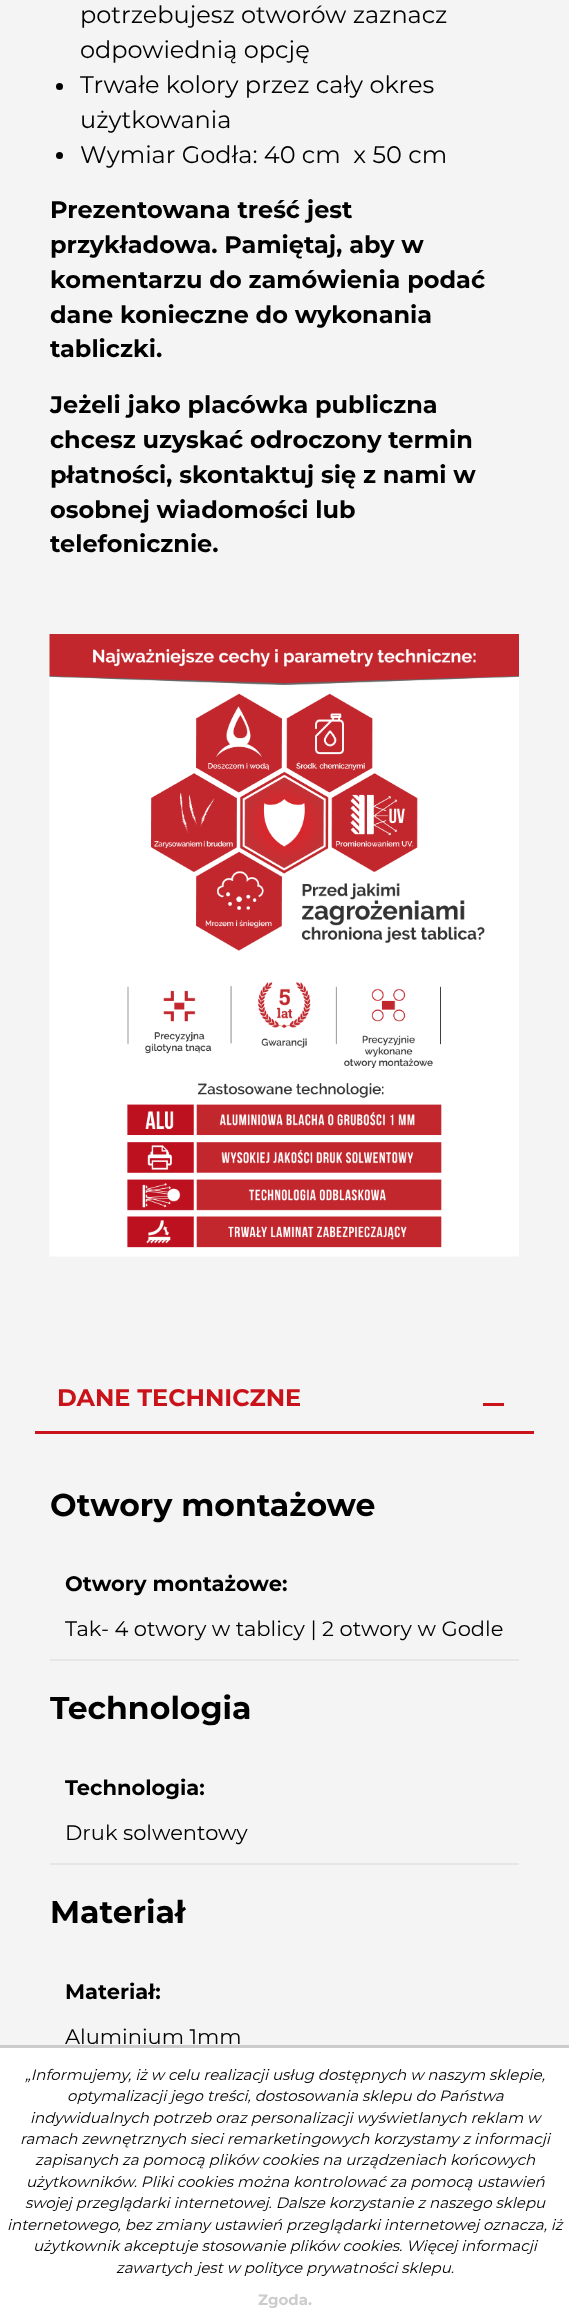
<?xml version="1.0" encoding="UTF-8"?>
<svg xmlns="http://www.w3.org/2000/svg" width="569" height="2317">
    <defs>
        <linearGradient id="g1" gradientUnits="userSpaceOnUse" x1="285" y1="-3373" x2="285" y2="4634"><stop offset="0.17" stop-color="#FFFFFF"/><stop offset="0.35" stop-color="#F4F4F4"/></linearGradient>
    </defs>
    <rect width="100%" height="100%" fill="#FFFFFF"/>
    <rect x="0" y="0" width="569" height="2045" fill="url(#g1)"/>
    <text font-family="Montserrat" font-size="24" fill="#000000">
        <tspan x="80" y="23">potrzebujesz otworów zaznacz</tspan>
        <tspan x="80" y="58">odpowiednią opcję</tspan>
    </text>
    <circle cx="59.5" cy="86.5" r="3.5" fill="#000000"/>
    <text font-family="Montserrat" font-size="24" fill="#000000">
        <tspan x="80" y="93">Trwałe kolory przez cały okres</tspan>
        <tspan x="80" y="128">użytkowania</tspan>
    </text>
    <circle cx="59.5" cy="155.5" r="3.5" fill="#000000"/>
    <text x="80" y="163" font-family="Montserrat" font-size="24" fill="#000000" xml:space="preserve">Wymiar Godła: 40 cm  x 50 cm</text>
    <text font-family="Montserrat" font-size="24" font-weight="700" fill="#000000">
        <tspan x="50" y="218">Prezentowana treść jest</tspan>
        <tspan x="50" y="253">przykładowa. Pamiętaj, aby w</tspan>
        <tspan x="50" y="288">komentarzu do zamówienia podać</tspan>
        <tspan x="50" y="323">dane konieczne do wykonania</tspan>
        <tspan x="50" y="357">tabliczki.</tspan>
    </text>
    <text font-family="Montserrat" font-size="24" font-weight="700" fill="#000000">
        <tspan x="50" y="413">Jeżeli jako placówka publiczna</tspan>
        <tspan x="50" y="448">chcesz uzyskać odroczony termin</tspan>
        <tspan x="50" y="483">płatności, skontaktuj się z nami w</tspan>
        <tspan x="50" y="518">osobnej wiadomości lub</tspan>
        <tspan x="50" y="552">telefonicznie.</tspan>
    </text>
    <image x="49" y="634" width="470" height="623" href="img_01.png"/>
    <rect x="35" y="1431" width="499" height="3" fill="#C91219"/>
    <text x="57" y="1406" font-family="Montserrat" font-size="24" font-weight="700" fill="#C91219">DANE TECHNICZNE</text>
    <rect x="483" y="1403" width="21" height="3" fill="#C91219"/>
    <text x="50" y="1516" font-family="Montserrat" font-size="31.5" font-weight="700" fill="#000000">Otwory montażowe</text>
    <rect x="50" y="1659" width="469" height="2" fill="#E6E6E6"/>
    <text x="65" y="1591" font-family="Montserrat" font-size="21" font-weight="700" fill="#000000">Otwory montażowe:</text>
    <text x="65" y="1636" font-family="Montserrat" font-size="21" fill="#000000">Tak- 4 otwory w tablicy | 2 otwory w Godle</text>
    <text x="50" y="1719" font-family="Montserrat" font-size="31.5" font-weight="700" fill="#000000">Technologia</text>
    <rect x="50" y="1863" width="469" height="2" fill="#E6E6E6"/>
    <text x="65" y="1795" font-family="Montserrat" font-size="21" font-weight="700" fill="#000000">Technologia:</text>
    <text x="65" y="1840" font-family="Montserrat" font-size="21" fill="#000000">Druk solwentowy</text>
    <text x="50" y="1923" font-family="Montserrat" font-size="31.5" font-weight="700" fill="#000000">Materiał</text>
    <text x="65" y="1999" font-family="Montserrat" font-size="21" font-weight="700" fill="#000000">Materiał:</text>
    <text x="65" y="2044" font-family="Montserrat" font-size="21" fill="#000000">Aluminium 1mm</text>
    <rect x="0" y="2045" width="569" height="3" fill="#CCCCCC"/>
    <text x="25" y="2080" font-family="Montserrat" font-size="15" font-style="italic" fill="#000000">„Informujemy, iż w celu realizacji usług dostępnych w naszym sklepie,</text>
    <text x="67" y="2101" font-family="Montserrat" font-size="15" font-style="italic" fill="#000000">optymalizacji jego treści, dostosowania sklepu do Państwa</text>
    <text x="30" y="2123" font-family="Montserrat" font-size="15" font-style="italic" fill="#000000">indywidualnych potrzeb oraz personalizacji wyświetlanych reklam w</text>
    <text x="20" y="2144" font-family="Montserrat" font-size="15" font-style="italic" fill="#000000">ramach zewnętrznych sieci remarketingowych korzystamy z informacji</text>
    <text x="35" y="2165" font-family="Montserrat" font-size="15" font-style="italic" fill="#000000">zapisanych za pomocą plików cookies na urządzeniach końcowych</text>
    <text x="26" y="2187" font-family="Montserrat" font-size="15" font-style="italic" fill="#000000">użytkowników. Pliki cookies można kontrolować za pomocą ustawień</text>
    <text x="25" y="2208" font-family="Montserrat" font-size="15" font-style="italic" fill="#000000">swojej przeglądarki internetowej. Dalsze korzystanie z naszego sklepu</text>
    <text x="7" y="2230" font-family="Montserrat" font-size="15" font-style="italic" fill="#000000">internetowego, bez zmiany ustawień przeglądarki internetowej oznacza, iż</text>
    <text x="33" y="2251" font-family="Montserrat" font-size="15" font-style="italic" fill="#000000">użytkownik akceptuje stosowanie plików cookies. Więcej informacji</text>
    <text x="116" y="2273" font-family="Montserrat" font-size="15" font-style="italic" fill="#000000">zawartych jest w polityce prywatności sklepu.</text>
    <text x="258" y="2305" font-family="Montserrat" font-size="15" font-weight="700" fill="#CCCCCC">Zgoda.</text>
</svg>
